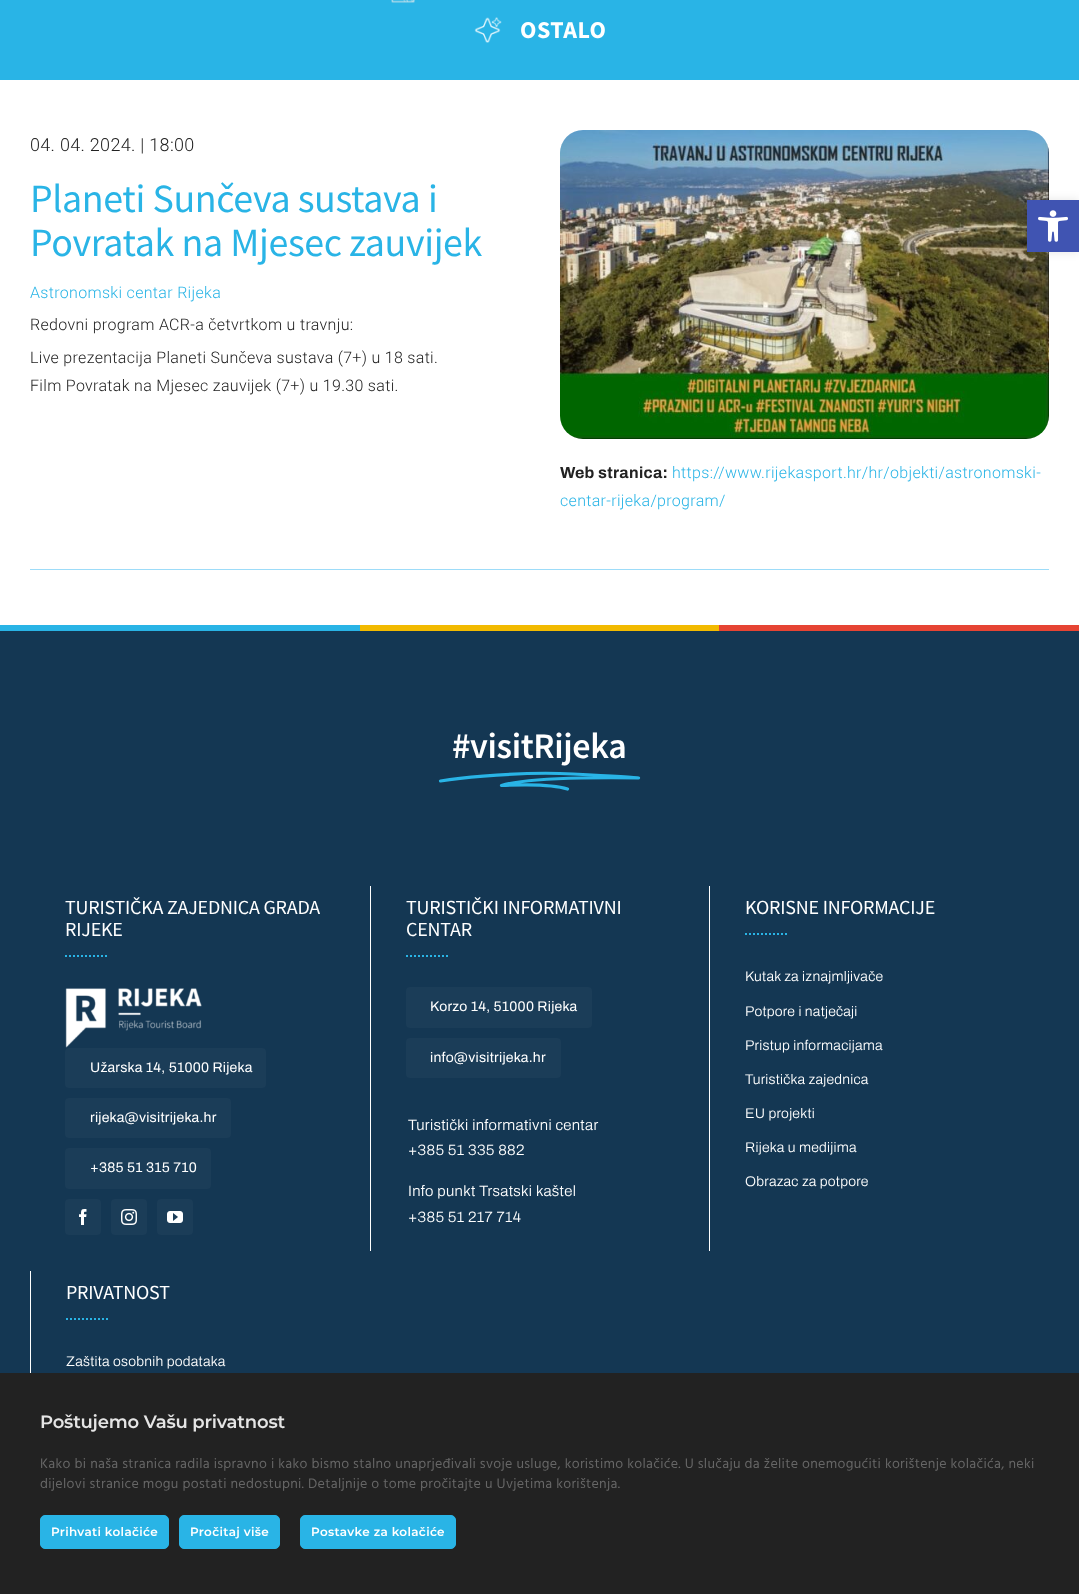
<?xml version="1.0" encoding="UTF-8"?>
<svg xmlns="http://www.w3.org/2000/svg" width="1079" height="1594">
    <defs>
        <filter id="blur1" x="-50%" y="-200%" width="200%" height="500%"><feGaussianBlur stdDeviation="5"/></filter>
    </defs>
    <rect width="100%" height="100%" fill="#FFFFFF"/>
    <rect x="0" y="0" width="1079" height="80" fill="#29B4E6"/>
    <image x="391" y="0" width="24" height="3" href="img_01.png"/>
    <image x="474" y="17" width="28" height="26" href="img_02.png"/>
    <text x="520" y="38" font-family="Source Sans Pro" font-size="24" font-weight="700" letter-spacing="0.5" fill="#FFFFFF">OSTALO</text>
    <text x="30" y="151" font-family="Roboto" font-size="18" font-weight="300" letter-spacing="0.32" fill="#222222">04. 04. 2024. | 18:00</text>
    <text font-family="Source Sans Pro" font-size="40" letter-spacing="-0.4" fill="#29B4E6">
        <tspan x="30" y="212">Planeti Sunčeva sustava i</tspan>
        <tspan x="30" y="256">Povratak na Mjesec zauvijek</tspan>
    </text>
    <text x="30" y="298" font-family="Roboto" font-size="16" font-weight="300" letter-spacing="0.32" fill="#29B4E6">Astronomski centar Rijeka</text>
    <text x="30" y="330" font-family="Roboto" font-size="16" font-weight="300" letter-spacing="0.32" fill="#222222">Redovni program ACR-a četvrtkom u travnju:</text>
    <text font-family="Roboto" font-size="16" font-weight="300" letter-spacing="0.32" fill="#222222">
        <tspan x="30" y="363">Live prezentacija Planeti Sunčeva sustava (7+) u 18 sati.</tspan>
        <tspan x="30" y="391">Film Povratak na Mjesec zauvijek (7+) u 19.30 sati.</tspan>
    </text>
    <image x="560" y="130" width="489" height="309" href="img_03.png"/>
    <text x="560" y="478" font-family="Archivo" font-size="16" font-weight="700" letter-spacing="0.32" fill="#222222">Web stranica:</text>
    <text x="672" y="478" font-family="Roboto" font-size="16" font-weight="300" letter-spacing="0.32" fill="#29B4E6">https://www.rijekasport.hr/hr/objekti/astronomski-</text>
    <text x="560" y="506" font-family="Roboto" font-size="16" font-weight="300" letter-spacing="0.32" fill="#29B4E6">centar-rijeka/program/</text>
    <rect x="30" y="569" width="1019" height="1" fill="#9DDCF9"/>
    <rect x="0" y="625" width="360" height="6" fill="#29B4E6"/>
    <rect x="360" y="625" width="359" height="6" fill="#F2BA00"/>
    <rect x="719" y="625" width="360" height="6" fill="#E64433"/>
    <rect x="0" y="631" width="1079" height="742" fill="#143753"/>
    <text x="452" y="758" font-family="Source Sans Pro" font-size="36" font-weight="600" letter-spacing="-0.4" fill="#FFFFFF">#visitRijeka</text>
    <path d="M 440.5 781 C 440.5 781 510.5 770.5 573 774 C 635.5 777 638.5 778 638.5 778 C 638.5 778 532.5 775.5 501.5 785.5 C 501.5 785.5 547.5 782.5 567.5 789" fill="none" stroke="#29B4E6" stroke-width="3.2" stroke-linecap="round" stroke-linejoin="round"/>
    <text font-family="Source Sans Pro" font-size="20" letter-spacing="-0.2" fill="#FFFFFF">
        <tspan x="65" y="914">TURISTIČKA ZAJEDNICA GRADA</tspan>
        <tspan x="65" y="936">RIJEKE</tspan>
    </text>
    <path d="M 65 956 H 107" fill="none" stroke="#29B4E6" stroke-width="2" stroke-dasharray="2 2"/>
    <image x="65" y="988" width="137" height="60" href="img_04.png"/>
    <rect x="65" y="1048" width="201" height="40" rx="4" fill="#1B3D58"/>
    <text x="90" y="1072" font-family="Archivo" font-size="14" letter-spacing="0.25" fill="#FFFFFF">Užarska 14, 51000 Rijeka</text>
    <rect x="65" y="1098" width="166" height="40" rx="4" fill="#1B3D58"/>
    <text x="90" y="1122" font-family="Archivo" font-size="14" letter-spacing="0.25" fill="#FFFFFF">rijeka@visitrijeka.hr</text>
    <rect x="65" y="1148" width="146" height="41" rx="4" fill="#1B3D58"/>
    <text x="90" y="1172" font-family="Archivo" font-size="14" letter-spacing="0.25" fill="#FFFFFF">+385 51 315 710</text>
    <rect x="65" y="1199" width="36" height="36" rx="4" fill="#1B3D58"/>
    <image x="79" y="1209" width="8" height="16" href="img_05.png"/>
    <rect x="111" y="1199" width="36" height="36" rx="4" fill="#1B3D58"/>
    <image x="121" y="1209" width="16" height="16" href="img_06.png"/>
    <rect x="157" y="1199" width="36" height="36" rx="4" fill="#1B3D58"/>
    <image x="167" y="1211" width="16" height="12" href="img_07.png"/>
    <rect x="370" y="886" width="1" height="365" fill="#FFFFFF"/>
    <text font-family="Source Sans Pro" font-size="20" letter-spacing="-0.2" fill="#FFFFFF">
        <tspan x="406" y="914">TURISTIČKI INFORMATIVNI</tspan>
        <tspan x="406" y="936">CENTAR</tspan>
    </text>
    <path d="M 406 956 H 448" fill="none" stroke="#29B4E6" stroke-width="2" stroke-dasharray="2 2"/>
    <rect x="406" y="987" width="186" height="41" rx="4" fill="#1B3D58"/>
    <text x="430" y="1011" font-family="Archivo" font-size="14" letter-spacing="0.25" fill="#FFFFFF">Korzo 14, 51000 Rijeka</text>
    <rect x="406" y="1038" width="155" height="40" rx="4" fill="#1B3D58"/>
    <text x="430" y="1062" font-family="Archivo" font-size="14" letter-spacing="0.25" fill="#FFFFFF">info@visitrijeka.hr</text>
    <text font-family="Archivo" font-size="15" font-weight="300" letter-spacing="0.32" fill="#FFFFFF">
        <tspan x="408" y="1130">Turistički informativni centar</tspan>
        <tspan x="408" y="1155">+385 51 335 882</tspan>
    </text>
    <text font-family="Archivo" font-size="15" font-weight="300" letter-spacing="0.32" fill="#FFFFFF">
        <tspan x="408" y="1196">Info punkt Trsatski kaštel</tspan>
        <tspan x="408" y="1222">+385 51 217 714</tspan>
    </text>
    <rect x="709" y="886" width="1" height="365" fill="#FFFFFF"/>
    <text x="745" y="914" font-family="Source Sans Pro" font-size="20" letter-spacing="-0.2" fill="#FFFFFF">KORISNE INFORMACIJE</text>
    <path d="M 745 934 H 787" fill="none" stroke="#29B4E6" stroke-width="2" stroke-dasharray="2 2"/>
    <text x="745" y="981" font-family="Archivo" font-size="14" font-weight="300" letter-spacing="0.25" fill="#FFFFFF">Kutak za iznajmljivače</text>
    <text x="745" y="1016" font-family="Archivo" font-size="14" font-weight="300" letter-spacing="0.25" fill="#FFFFFF">Potpore i natječaji</text>
    <text x="745" y="1050" font-family="Archivo" font-size="14" font-weight="300" letter-spacing="0.25" fill="#FFFFFF">Pristup informacijama</text>
    <text x="745" y="1084" font-family="Archivo" font-size="14" font-weight="300" letter-spacing="0.25" fill="#FFFFFF">Turistička zajednica</text>
    <text x="745" y="1118" font-family="Archivo" font-size="14" font-weight="300" letter-spacing="0.25" fill="#FFFFFF">EU projekti</text>
    <text x="745" y="1152" font-family="Archivo" font-size="14" font-weight="300" letter-spacing="0.25" fill="#FFFFFF">Rijeka u medijima</text>
    <text x="745" y="1186" font-family="Archivo" font-size="14" font-weight="300" letter-spacing="0.25" fill="#FFFFFF">Obrazac za potpore</text>
    <rect x="30" y="1271" width="1" height="102" fill="#FFFFFF"/>
    <text x="66" y="1299" font-family="Source Sans Pro" font-size="20" letter-spacing="-0.2" fill="#FFFFFF">PRIVATNOST</text>
    <path d="M 66 1319 H 108" fill="none" stroke="#29B4E6" stroke-width="2" stroke-dasharray="2 2"/>
    <text x="66" y="1366" font-family="Archivo" font-size="14" font-weight="300" letter-spacing="0.25" fill="#FFFFFF">Zaštita osobnih podataka</text>
    <rect x="1027" y="200" width="52" height="52" fill="#000000" fill-opacity="0.1" filter="url(#blur1)"/>
    <rect x="1027" y="200" width="52" height="52" fill="#4054B2"/>
    <image x="1038" y="210" width="30" height="32" href="img_08.png"/>
    <rect x="0" y="1373" width="1079" height="221" fill="#222222"/>
    <text x="40" y="1428" font-family="Montserrat" font-size="18" font-weight="600" letter-spacing="-0.2" fill="#E5E5E5">Poštujemo Vašu privatnost</text>
    <text font-family="Hind" font-size="14" letter-spacing="0.32" fill="#666666">
        <tspan x="40" y="1468">Kako bi naša stranica radila ispravno i kako bismo stalno unaprjeđivali svoje usluge, koristimo kolačiće. U slučaju da želite onemogućiti korištenje kolačića, neki</tspan>
        <tspan x="40" y="1488">dijelovi stranice mogu postati nedostupni. Detaljnije o tome pročitajte u Uvjetima korištenja.</tspan>
    </text>
    <rect x="40.5" y="1515.5" width="128" height="33" rx="4.5" fill="#29B4E6" stroke="#29B4E6"/>
    <text x="51" y="1536" font-family="Montserrat" font-size="12" font-weight="600" letter-spacing="0.32" fill="#FFFFFF">Prihvati kolačiće</text>
    <rect x="179.5" y="1515.5" width="100" height="33" rx="4.5" fill="#29B4E6" stroke="#29B4E6"/>
    <text x="190" y="1536" font-family="Montserrat" font-size="12" font-weight="600" letter-spacing="0.32" fill="#FFFFFF">Pročitaj više</text>
    <rect x="300.5" y="1515.5" width="155" height="33" rx="4.5" fill="#29B4E6" stroke="#29B4E6"/>
    <text x="311" y="1536" font-family="Montserrat" font-size="12" font-weight="600" letter-spacing="0.32" fill="#FFFFFF">Postavke za kolačiće</text>
</svg>
